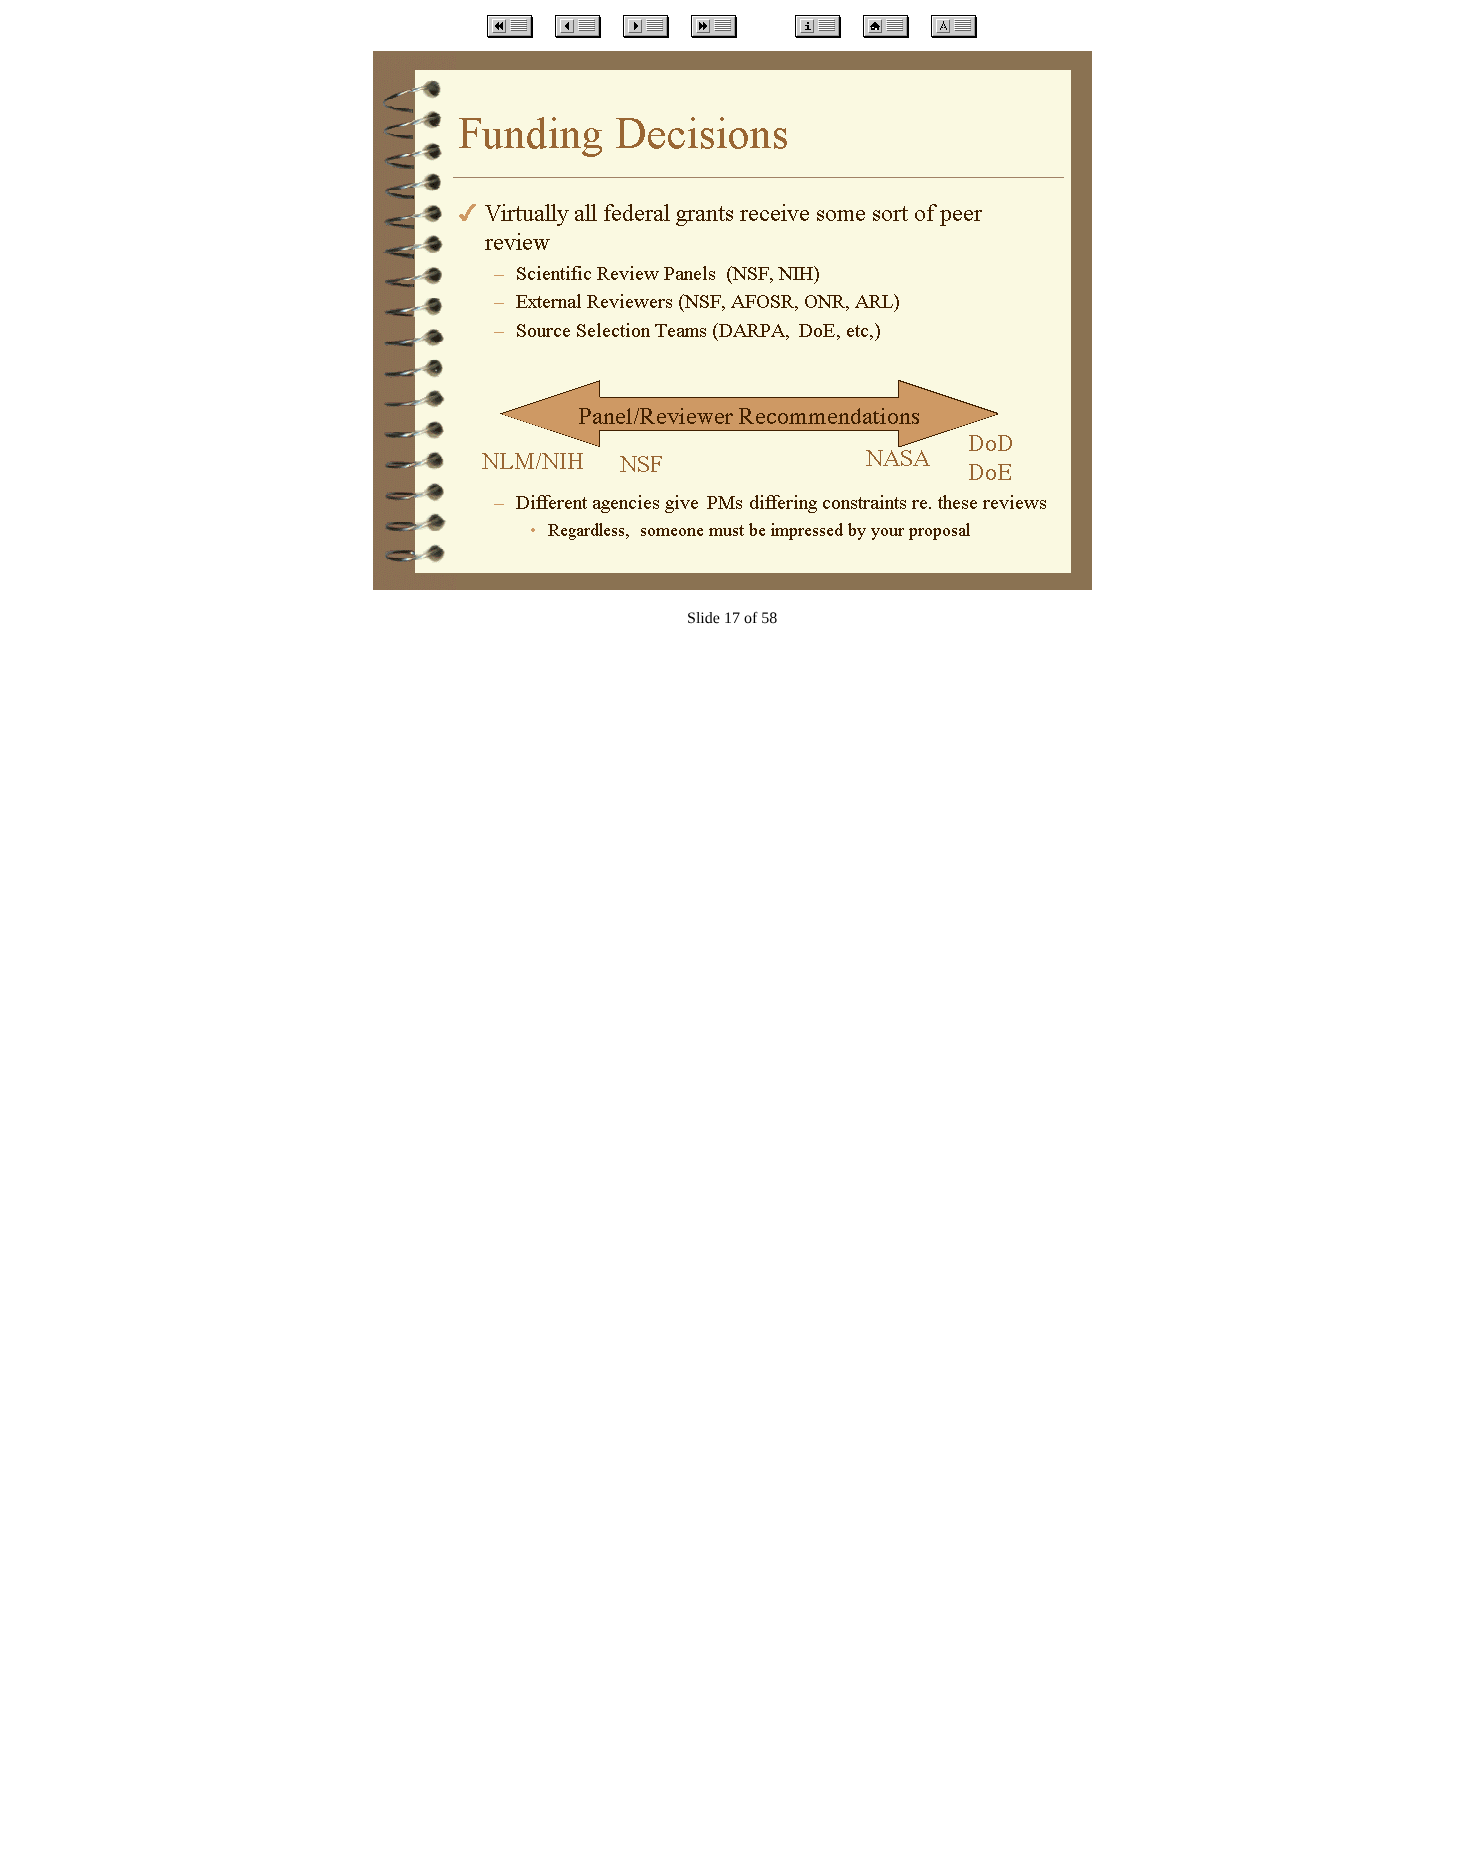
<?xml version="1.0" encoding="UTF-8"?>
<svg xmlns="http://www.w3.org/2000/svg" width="1464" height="1854">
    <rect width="100%" height="100%" fill="#FFFFFF"/>
    <image x="487" y="15" width="46" height="23" href="img_01.png"/>
    <image x="555" y="15" width="46" height="23" href="img_02.png"/>
    <image x="623" y="15" width="46" height="23" href="img_03.png"/>
    <image x="691" y="15" width="46" height="23" href="img_04.png"/>
    <image x="795" y="15" width="46" height="23" href="img_05.png"/>
    <image x="863" y="15" width="46" height="23" href="img_06.png"/>
    <image x="931" y="15" width="46" height="23" href="img_07.png"/>
    <image x="373" y="51" width="719" height="539" href="img_08.png"/>
    <text x="687" y="623" font-family="Liberation Serif" font-size="16" fill="#000000">Slide 17 of 58</text>
</svg>
